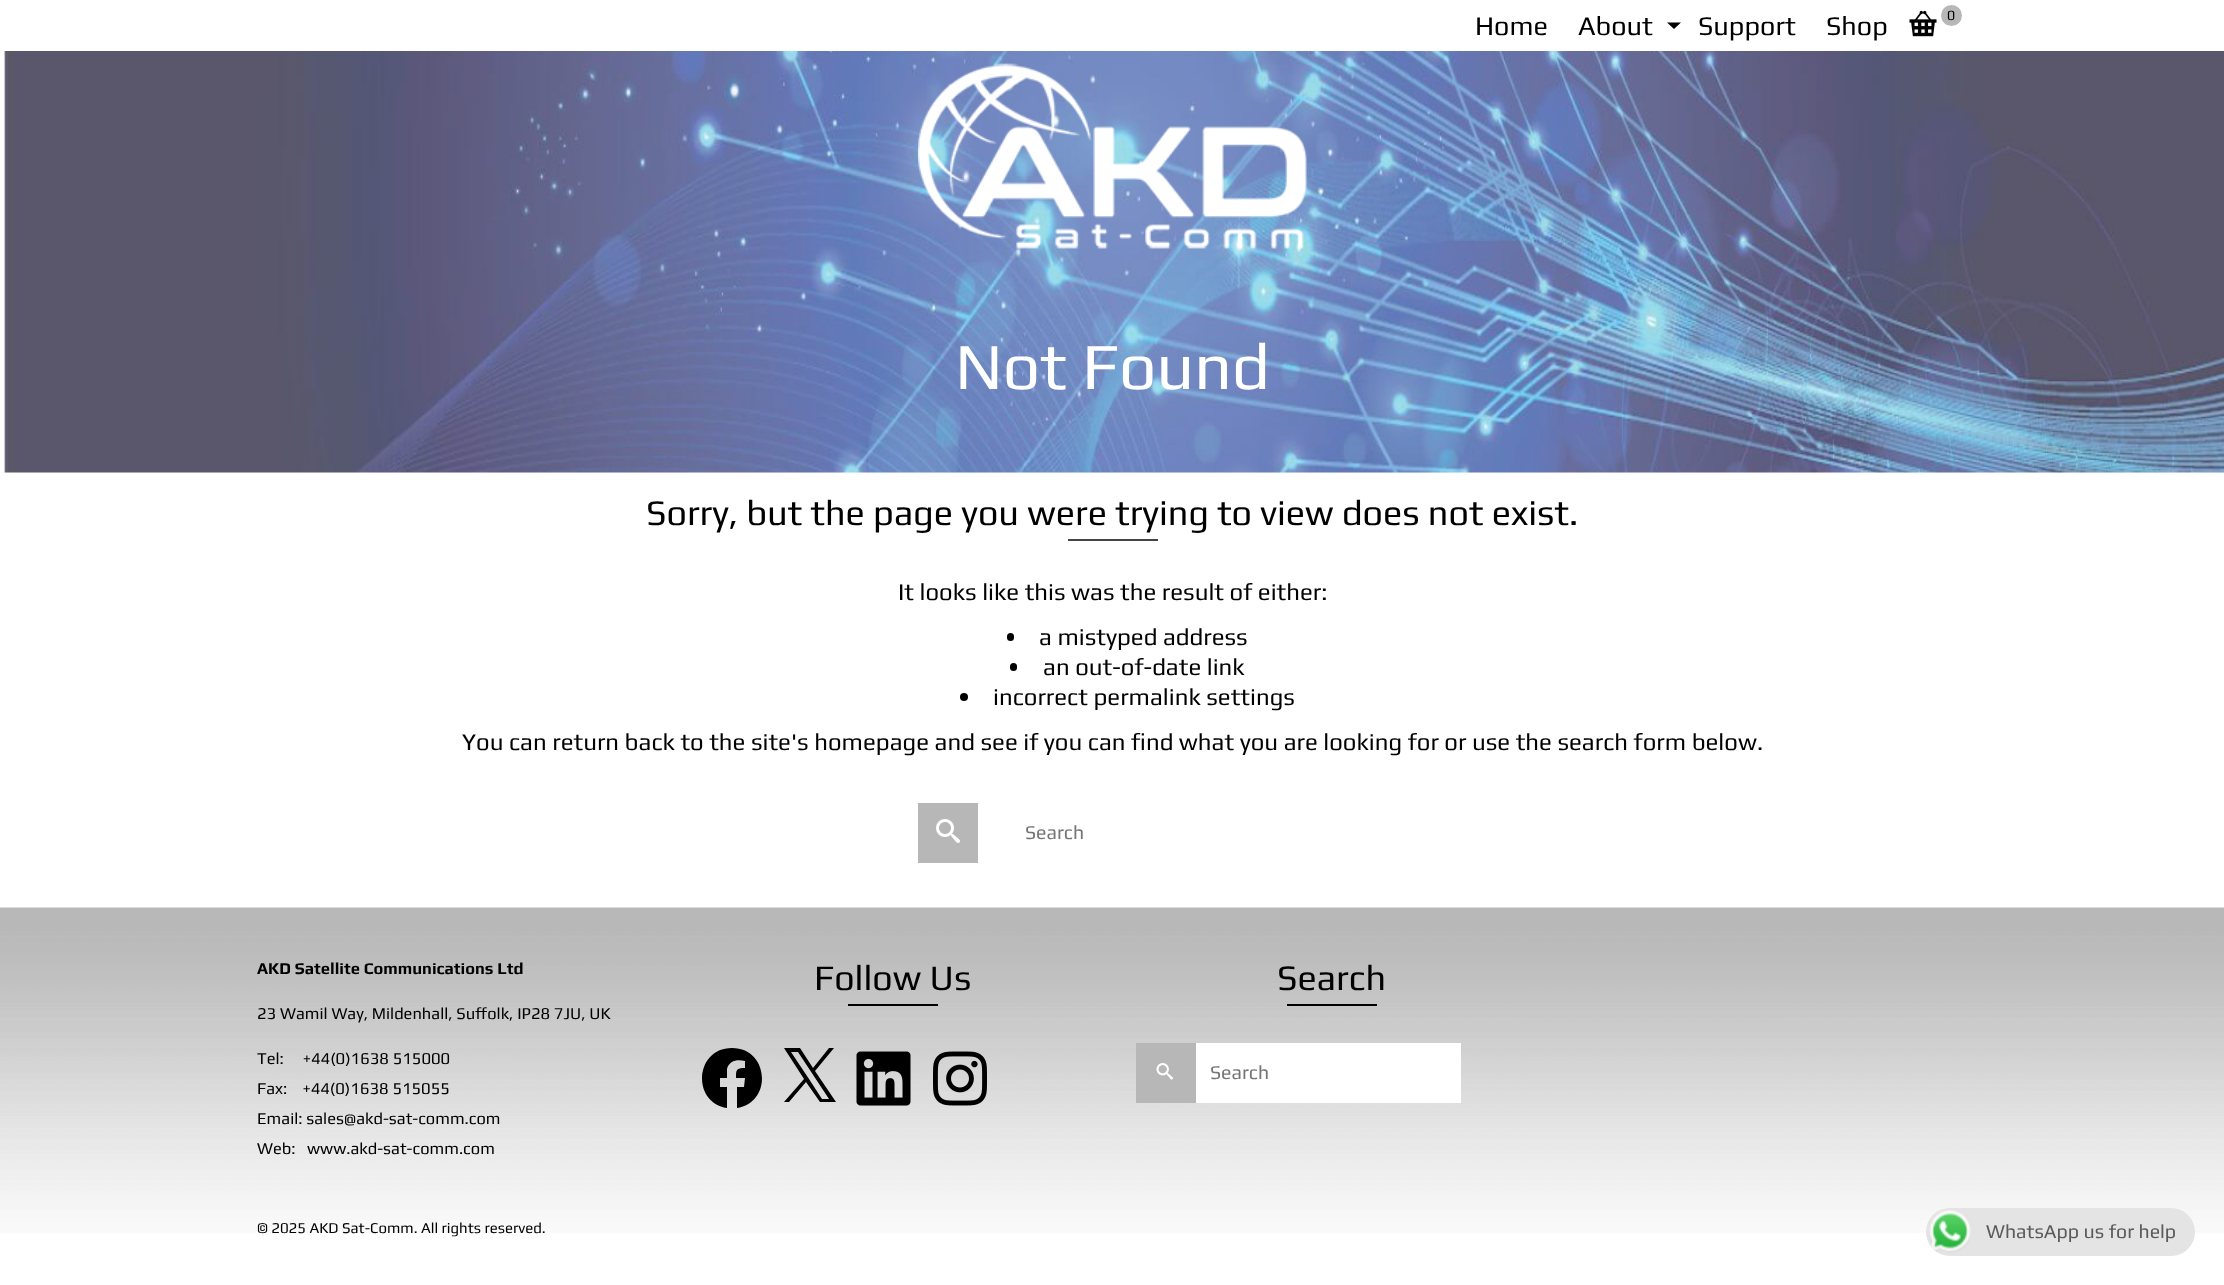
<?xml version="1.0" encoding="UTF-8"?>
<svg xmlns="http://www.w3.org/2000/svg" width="2224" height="1285">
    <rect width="100%" height="100%" fill="#FFFFFF"/>
    <text x="1475" y="35" font-family="Play" font-size="27" fill="#000000">Home</text>
    <text x="1578" y="35" font-family="Play" font-size="27" fill="#000000">About</text>
    <path d="M 1667 22.5 L 1674 29 L 1681 22.5 Z" fill="#000000"/>
    <text x="1698" y="35" font-family="Play" font-size="27" fill="#000000">Support</text>
    <text x="1826" y="35" font-family="Play" font-size="27" fill="#000000">Shop</text>
    <image x="1909" y="10" width="28" height="27" href="img_01.png"/>
    <circle cx="1951.5" cy="15.5" r="10.5" fill="#B7B7B7"/>
    <text x="1947" y="20" font-family="Play" font-size="14" fill="#000000">0</text>
    <rect x="0" y="472" width="2224" height="1" fill="#FBFBFB"/>
    <image x="0" y="51" width="2224" height="422" href="img_03.png"/>
    <image x="918" y="63" width="389" height="186" href="img_02.png"/>
    <text x="955" y="389" font-family="Play" font-size="66" fill="#FFFFFF">Not Found</text>
    <text x="646" y="525" font-family="Play" font-size="36" fill="#000000">Sorry, but the page you were trying to view does not exist.</text>
    <rect x="1068" y="539" width="90" height="2" fill="#444444"/>
    <text x="898" y="600" font-family="Play" font-size="24" fill="#000000">It looks like this was the result of either:</text>
    <rect x="1007" y="633" width="7" height="8" rx="3.5" fill="#000000"/>
    <text x="1039" y="645" font-family="Play" font-size="24" fill="#000000">a mistyped address</text>
    <rect x="1010" y="663" width="7" height="8" rx="3.5" fill="#000000"/>
    <text x="1043" y="675" font-family="Play" font-size="24" fill="#000000">an out-of-date link</text>
    <circle cx="964" cy="697" r="4" fill="#000000"/>
    <text x="993" y="705" font-family="Play" font-size="24" fill="#000000">incorrect permalink settings</text>
    <text x="462" y="750" font-family="Play" font-size="24" fill="#000000">You can return back to the site's homepage and see if you can find what you are looking for or use the search form below.</text>
    <rect x="918" y="803" width="60" height="60" fill="#B7B7B7"/>
    <image x="936" y="819" width="24" height="24" href="img_04.png"/>
    <text x="1025" y="839" font-family="Play" font-size="19.5" fill="#757575">Search</text>
    <image x="0" y="907" width="2224" height="326" href="img_05.png"/>
    <text x="257" y="974" font-family="Play" font-size="16.5" font-weight="700" fill="#000000">AKD Satellite Communications Ltd</text>
    <text x="257" y="1019" font-family="Play" font-size="16.5" fill="#000000">23 Wamil Way, Mildenhall, Suffolk, IP28 7JU, UK</text>
    <text font-family="Play" font-size="16.5" fill="#000000" xml:space="preserve"><tspan x="257" y="1064">Tel:     +44(0)1638 515000</tspan><tspan x="257" y="1094">Fax:    +44(0)1638 515055</tspan><tspan x="257" y="1124">Email: sales@akd-sat-comm.com</tspan><tspan x="257" y="1154">Web:</tspan></text>
    <text x="307" y="1154" font-family="Play" font-size="16.5" fill="#000000">www.akd-sat-comm.com</text>
    <text x="814" y="990" font-family="Play" font-size="36" fill="#000000">Follow Us</text>
    <rect x="848" y="1004" width="90" height="2" fill="#000000"/>
    <path d="M 732 1048 C 695 1048 691 1102 727 1108 V 1087 H 720 V 1078 H 727 V 1069 C 729 1060 738 1059 745 1061 V 1068 C 736 1068 736 1070 736 1078 H 745 L 744 1087 H 737 V 1108 C 773 1102 769 1048 732 1048 Z" fill="#000000"/>
    <path d="M 815 1071 L 834 1048 H 829 L 813 1068 L 800 1048 H 784 L 804 1079 L 784 1102 H 789 L 806 1082 L 820 1102 H 836 Z M 809 1079 L 791 1052 H 798 L 829 1099 H 822 Z" fill="#000000"/>
    <image x="856" y="1051" width="55" height="55" href="img_06.png"/>
    <image x="933" y="1051" width="54" height="55" href="img_07.png"/>
    <text x="1277" y="990" font-family="Play" font-size="36" fill="#000000">Search</text>
    <rect x="1287" y="1004" width="90" height="2" fill="#000000"/>
    <rect x="1136" y="1043" width="60" height="60" fill="#B7B7B7"/>
    <image x="1156" y="1063" width="17" height="17" href="img_08.png"/>
    <rect x="1196" y="1043" width="265" height="60" fill="#FFFFFF"/>
    <text x="1210" y="1079" font-family="Play" font-size="19.5" fill="#757575">Search</text>
    <text x="257" y="1233" font-family="Play" font-size="15" fill="#000000">© 2025 AKD Sat-Comm. All rights reserved.</text>
    <rect x="1926" y="1208" width="269" height="48" rx="24" fill="#E4E4E4"/>
    <image x="1929" y="1210" width="42" height="43" href="img_09.png"/>
    <text x="1986" y="1238" font-family="Play" font-size="19.5" fill="#5B5B5B">WhatsApp us for help</text>
</svg>
